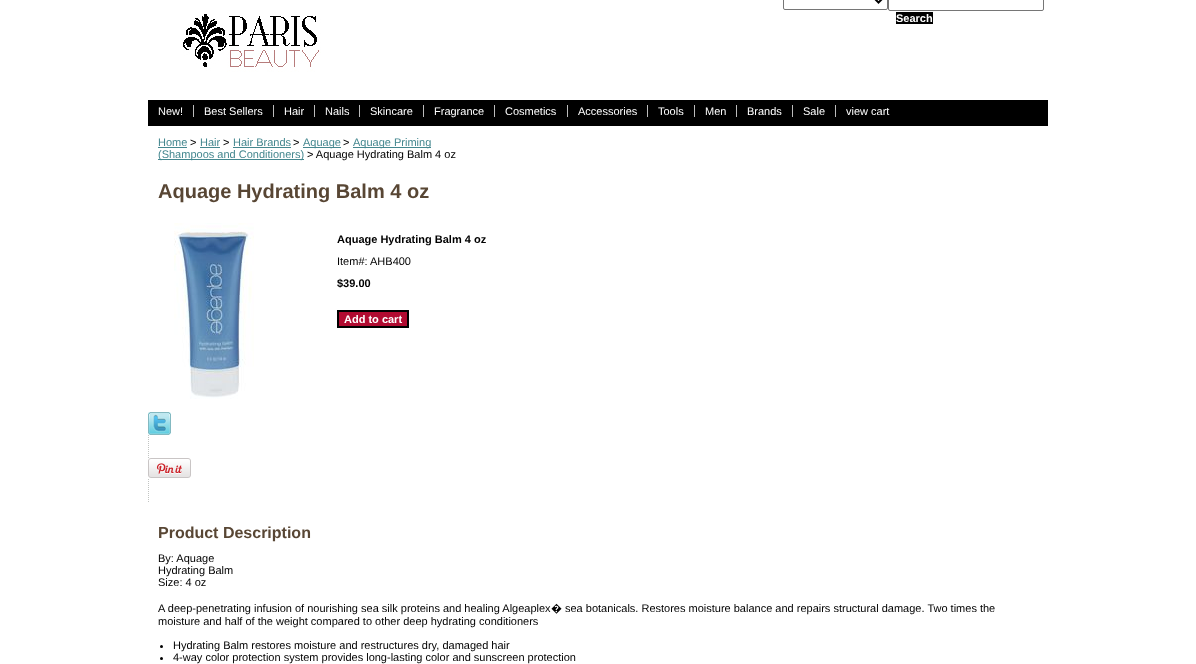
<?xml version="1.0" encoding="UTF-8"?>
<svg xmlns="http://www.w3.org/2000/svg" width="1196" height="664">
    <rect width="100%" height="100%" fill="#FFFFFF"/>
    <image x="183" y="14" width="138" height="58" href="img_01.png"/>
    <rect x="783.5" y="-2.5" width="104" height="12" rx="1.5" fill="none" stroke="#767676"/>
    <path d="M 874.5 -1.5 L 878.5 2.5 L 882.5 -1.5" fill="none" stroke="#000000" stroke-width="2"/>
    <rect x="888.5" y="-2.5" width="155" height="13" rx="1.5" fill="none" stroke="#767676"/>
    <rect x="896" y="12" width="37" height="12" fill="#000000"/>
    <text x="896" y="22" font-family="Liberation Sans" font-size="11" font-weight="700" fill="#FFFFFF">Search</text>
    <rect x="148" y="100" width="900" height="26" fill="#000000"/>
    <text x="158" y="115" font-family="Liberation Sans" font-size="11" fill="#FFFFFF">New!</text>
    <rect x="193" y="105" width="1" height="12" fill="#BCBCBC"/>
    <text x="204" y="115" font-family="Liberation Sans" font-size="11" fill="#FFFFFF">Best Sellers</text>
    <rect x="273" y="105" width="1" height="12" fill="#BCBCBC"/>
    <text x="284" y="115" font-family="Liberation Sans" font-size="11" fill="#FFFFFF">Hair</text>
    <rect x="314" y="105" width="1" height="12" fill="#BCBCBC"/>
    <text x="325" y="115" font-family="Liberation Sans" font-size="11" fill="#FFFFFF">Nails</text>
    <rect x="359" y="105" width="1" height="12" fill="#BCBCBC"/>
    <text x="370" y="115" font-family="Liberation Sans" font-size="11" fill="#FFFFFF">Skincare</text>
    <rect x="423" y="105" width="1" height="12" fill="#BCBCBC"/>
    <text x="434" y="115" font-family="Liberation Sans" font-size="11" fill="#FFFFFF">Fragrance</text>
    <rect x="494" y="105" width="1" height="12" fill="#BCBCBC"/>
    <text x="505" y="115" font-family="Liberation Sans" font-size="11" fill="#FFFFFF">Cosmetics</text>
    <rect x="567" y="105" width="1" height="12" fill="#BCBCBC"/>
    <text x="578" y="115" font-family="Liberation Sans" font-size="11" fill="#FFFFFF">Accessories</text>
    <rect x="647" y="105" width="1" height="12" fill="#BCBCBC"/>
    <text x="658" y="115" font-family="Liberation Sans" font-size="11" fill="#FFFFFF">Tools</text>
    <rect x="694" y="105" width="1" height="12" fill="#BCBCBC"/>
    <text x="705" y="115" font-family="Liberation Sans" font-size="11" fill="#FFFFFF">Men</text>
    <rect x="736" y="105" width="1" height="12" fill="#BCBCBC"/>
    <text x="747" y="115" font-family="Liberation Sans" font-size="11" fill="#FFFFFF">Brands</text>
    <rect x="792" y="105" width="1" height="12" fill="#BCBCBC"/>
    <text x="803" y="115" font-family="Liberation Sans" font-size="11" fill="#FFFFFF">Sale</text>
    <rect x="835" y="105" width="1" height="12" fill="#BCBCBC"/>
    <text x="846" y="115" font-family="Liberation Sans" font-size="11" fill="#FFFFFF">view cart</text>
    <text x="158" y="146" font-family="Liberation Sans" font-size="11" fill="#44878F">Home</text>
    <rect x="158" y="147" width="29" height="1" fill="#44878F"/>
    <text x="190" y="146" font-family="Liberation Sans" font-size="11" fill="#000000">&gt;</text>
    <text x="200" y="146" font-family="Liberation Sans" font-size="11" fill="#44878F">Hair</text>
    <rect x="200" y="147" width="20" height="1" fill="#44878F"/>
    <text x="223" y="146" font-family="Liberation Sans" font-size="11" fill="#000000">&gt;</text>
    <text x="233" y="146" font-family="Liberation Sans" font-size="11" fill="#44878F">Hair Brands</text>
    <rect x="233" y="147" width="58" height="1" fill="#44878F"/>
    <text x="293" y="146" font-family="Liberation Sans" font-size="11" fill="#000000">&gt;</text>
    <rect x="303" y="147" width="38" height="1" fill="#44878F"/>
    <text x="303" y="146" font-family="Liberation Sans" font-size="11" fill="#44878F">Aquage</text>
    <text x="343" y="146" font-family="Liberation Sans" font-size="11" fill="#000000">&gt;</text>
    <rect x="353" y="147" width="78" height="1" fill="#44878F"/>
    <text x="353" y="146" font-family="Liberation Sans" font-size="11" fill="#44878F">Aquage Priming</text>
    <rect x="158" y="159" width="146" height="1" fill="#44878F"/>
    <text x="158" y="158" font-family="Liberation Sans" font-size="11" fill="#44878F">(Shampoos and Conditioners)</text>
    <text x="307" y="158" font-family="Liberation Sans" font-size="11" fill="#000000">&gt; Aquage Hydrating Balm 4 oz</text>
    <text x="158" y="198" font-family="Liberation Sans" font-size="20" font-weight="700" fill="#584634">Aquage Hydrating Balm 4 oz</text>
    <image x="174" y="223" width="80" height="176" href="img_02.png"/>
    <text x="337" y="243" font-family="Liberation Sans" font-size="11" font-weight="700" fill="#000000">Aquage Hydrating Balm 4 oz</text>
    <text x="337" y="265" font-family="Liberation Sans" font-size="11" fill="#000000">Item#: AHB400</text>
    <text x="337" y="287" font-family="Liberation Sans" font-size="11" font-weight="700" fill="#000000">$39.00</text>
    <rect x="338" y="311" width="70" height="16" fill="#B10B31" stroke="#000000" stroke-width="2"/>
    <text x="344" y="323" font-family="Liberation Sans" font-size="11" font-weight="700" fill="#FFFFFF">Add to cart</text>
    <image x="148" y="412" width="23" height="23" href="img_03.png"/>
    <image x="148" y="435" width="1" height="23" href="img_04.png"/>
    <image x="148" y="458" width="43" height="20" href="img_05.png"/>
    <image x="148" y="479" width="1" height="23" href="img_04.png"/>
    <text x="158" y="538" font-family="Liberation Sans" font-size="16" font-weight="700" fill="#584634">Product Description</text>
    <text font-family="Liberation Sans" font-size="11" fill="#000000">
        <tspan x="158" y="562">By: Aquage</tspan>
        <tspan x="158" y="574">Hydrating Balm</tspan>
        <tspan x="158" y="586">Size: 4 oz</tspan>
    </text>
    <text x="158" y="612" font-family="Liberation Sans" font-size="11" fill="#000000">A deep-penetrating infusion of nourishing sea silk proteins and healing Algeaplex</text>
    <text x="551" y="612" font-family="Noto Sans" font-size="11" fill="#000000">�</text>
    <text x="565" y="612" font-family="Liberation Sans" font-size="11" fill="#000000">sea botanicals. Restores moisture balance and repairs structural damage. Two times the</text>
    <text x="158" y="625" font-family="Liberation Sans" font-size="11" fill="#000000">moisture and half of the weight compared to other deep hydrating conditioners</text>
    <circle cx="161.5" cy="646.5" r="1.5" fill="#000000"/>
    <text x="173" y="649" font-family="Liberation Sans" font-size="11" fill="#000000">Hydrating Balm restores moisture and restructures dry, damaged hair</text>
    <circle cx="161.5" cy="658.5" r="1.5" fill="#000000"/>
    <text x="173" y="661" font-family="Liberation Sans" font-size="11" fill="#000000">4-way color protection system provides long-lasting color and sunscreen protection</text>
</svg>
